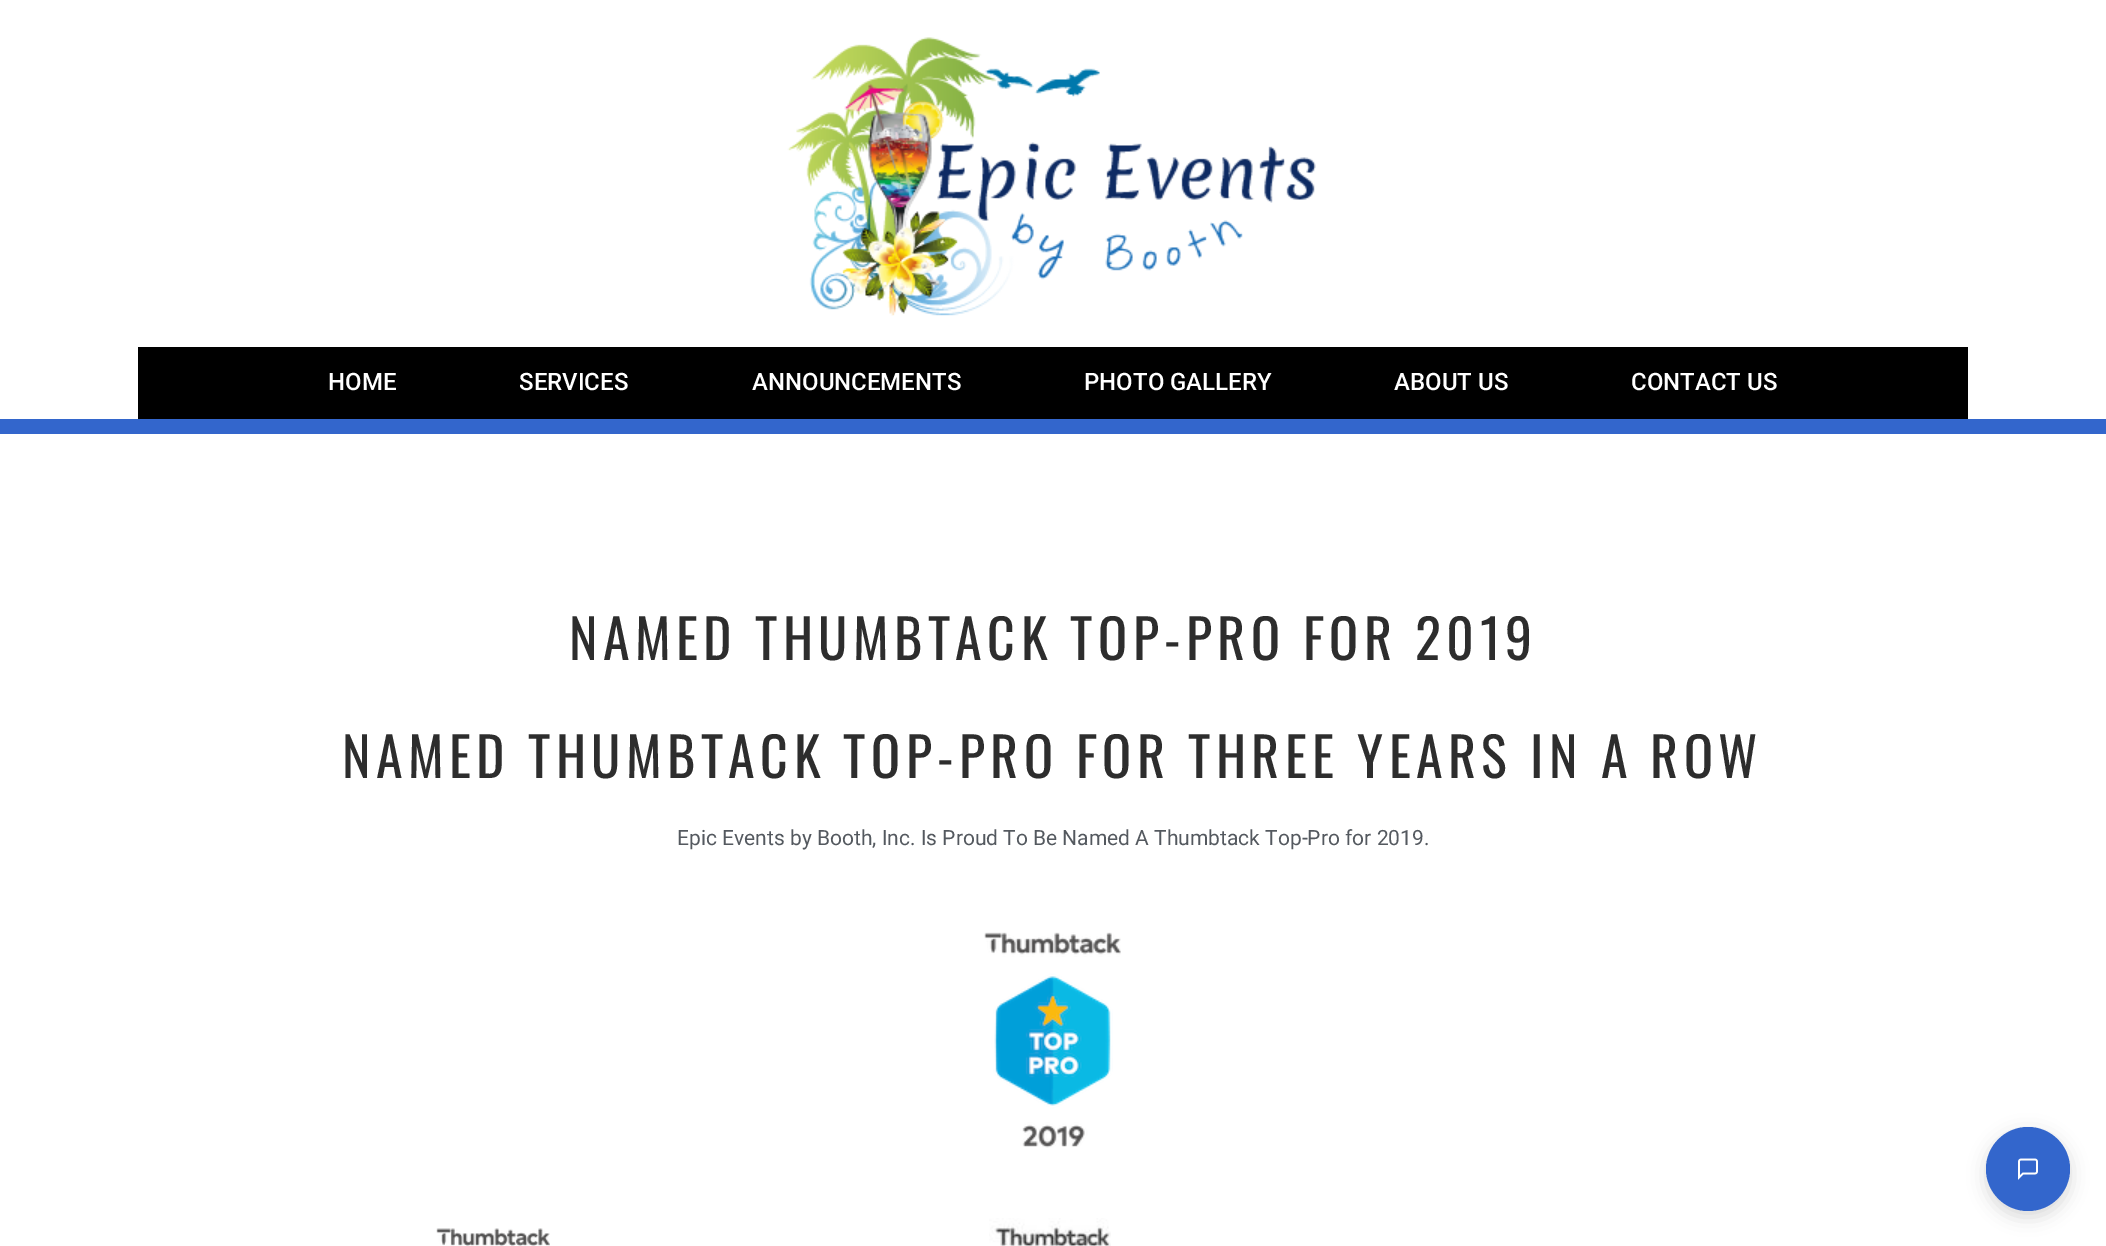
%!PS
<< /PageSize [2106 1246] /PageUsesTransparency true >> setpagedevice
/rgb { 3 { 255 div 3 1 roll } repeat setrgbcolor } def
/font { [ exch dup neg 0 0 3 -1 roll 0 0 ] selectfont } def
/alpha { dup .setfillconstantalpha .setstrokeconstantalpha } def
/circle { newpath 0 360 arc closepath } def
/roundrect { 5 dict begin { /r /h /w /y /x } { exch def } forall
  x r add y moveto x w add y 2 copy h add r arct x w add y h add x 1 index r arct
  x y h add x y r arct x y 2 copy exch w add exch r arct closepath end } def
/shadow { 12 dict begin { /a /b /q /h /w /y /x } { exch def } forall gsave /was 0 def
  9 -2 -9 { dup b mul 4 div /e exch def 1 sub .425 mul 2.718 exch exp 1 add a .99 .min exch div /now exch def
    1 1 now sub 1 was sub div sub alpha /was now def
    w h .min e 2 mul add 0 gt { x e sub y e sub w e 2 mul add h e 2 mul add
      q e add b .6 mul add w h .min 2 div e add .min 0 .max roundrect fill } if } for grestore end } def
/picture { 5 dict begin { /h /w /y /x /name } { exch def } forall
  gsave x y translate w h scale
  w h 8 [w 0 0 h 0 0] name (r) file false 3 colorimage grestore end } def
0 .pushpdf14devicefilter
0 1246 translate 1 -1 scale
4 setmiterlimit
255 255 255 rgb
0 0 2106 1246 rectfill
51 102 204 rgb
0 419 2106 15 rectfill
(img/1.rgb) 787 37 529 279 picture
0 0 0 rgb
138 347 1830 72 rectfill
(img/2.rgb) 984 932 137 216 picture
(img/3.rgb) 436 1228 114 18 picture
(img/4.rgb) 989 1218 122 28 picture
1986 1133 84 84 42 9 0.15 shadow
51 102 204 rgb
2028 1169 42 circle fill
(img/5.rgb) 2018 1158 20 22 picture
/Roboto-Medium 24 font
255 255 255 rgb
[
  [(HOME) 328 390]
  [(SERVICES) 519 390]
  [(ANNOUNCEMENTS) 752 390]
  [(PHOTO GALLERY) 1084 390]
  [(ABOUT US) 1394 390]
  [(CONTACT US) 1631 390]
] { aload pop moveto show } forall
/Oswald-Regular 54 font
45 45 45 rgb
569 660 moveto 5.4 0 (NAMED THUMBTACK TOP-PRO FOR 2019) ashow
342 778 moveto 5.4 0 (NAMED THUMBTACK TOP-PRO FOR THREE YEARS IN A ROW) ashow
/Roboto-Regular 21 font
84 89 95 rgb
677 845 moveto (Epic Events by Booth, Inc. Is Proud To Be Named A Thumbtack Top-Pro for 2019.) show
.poppdf14devicefilter showpage
